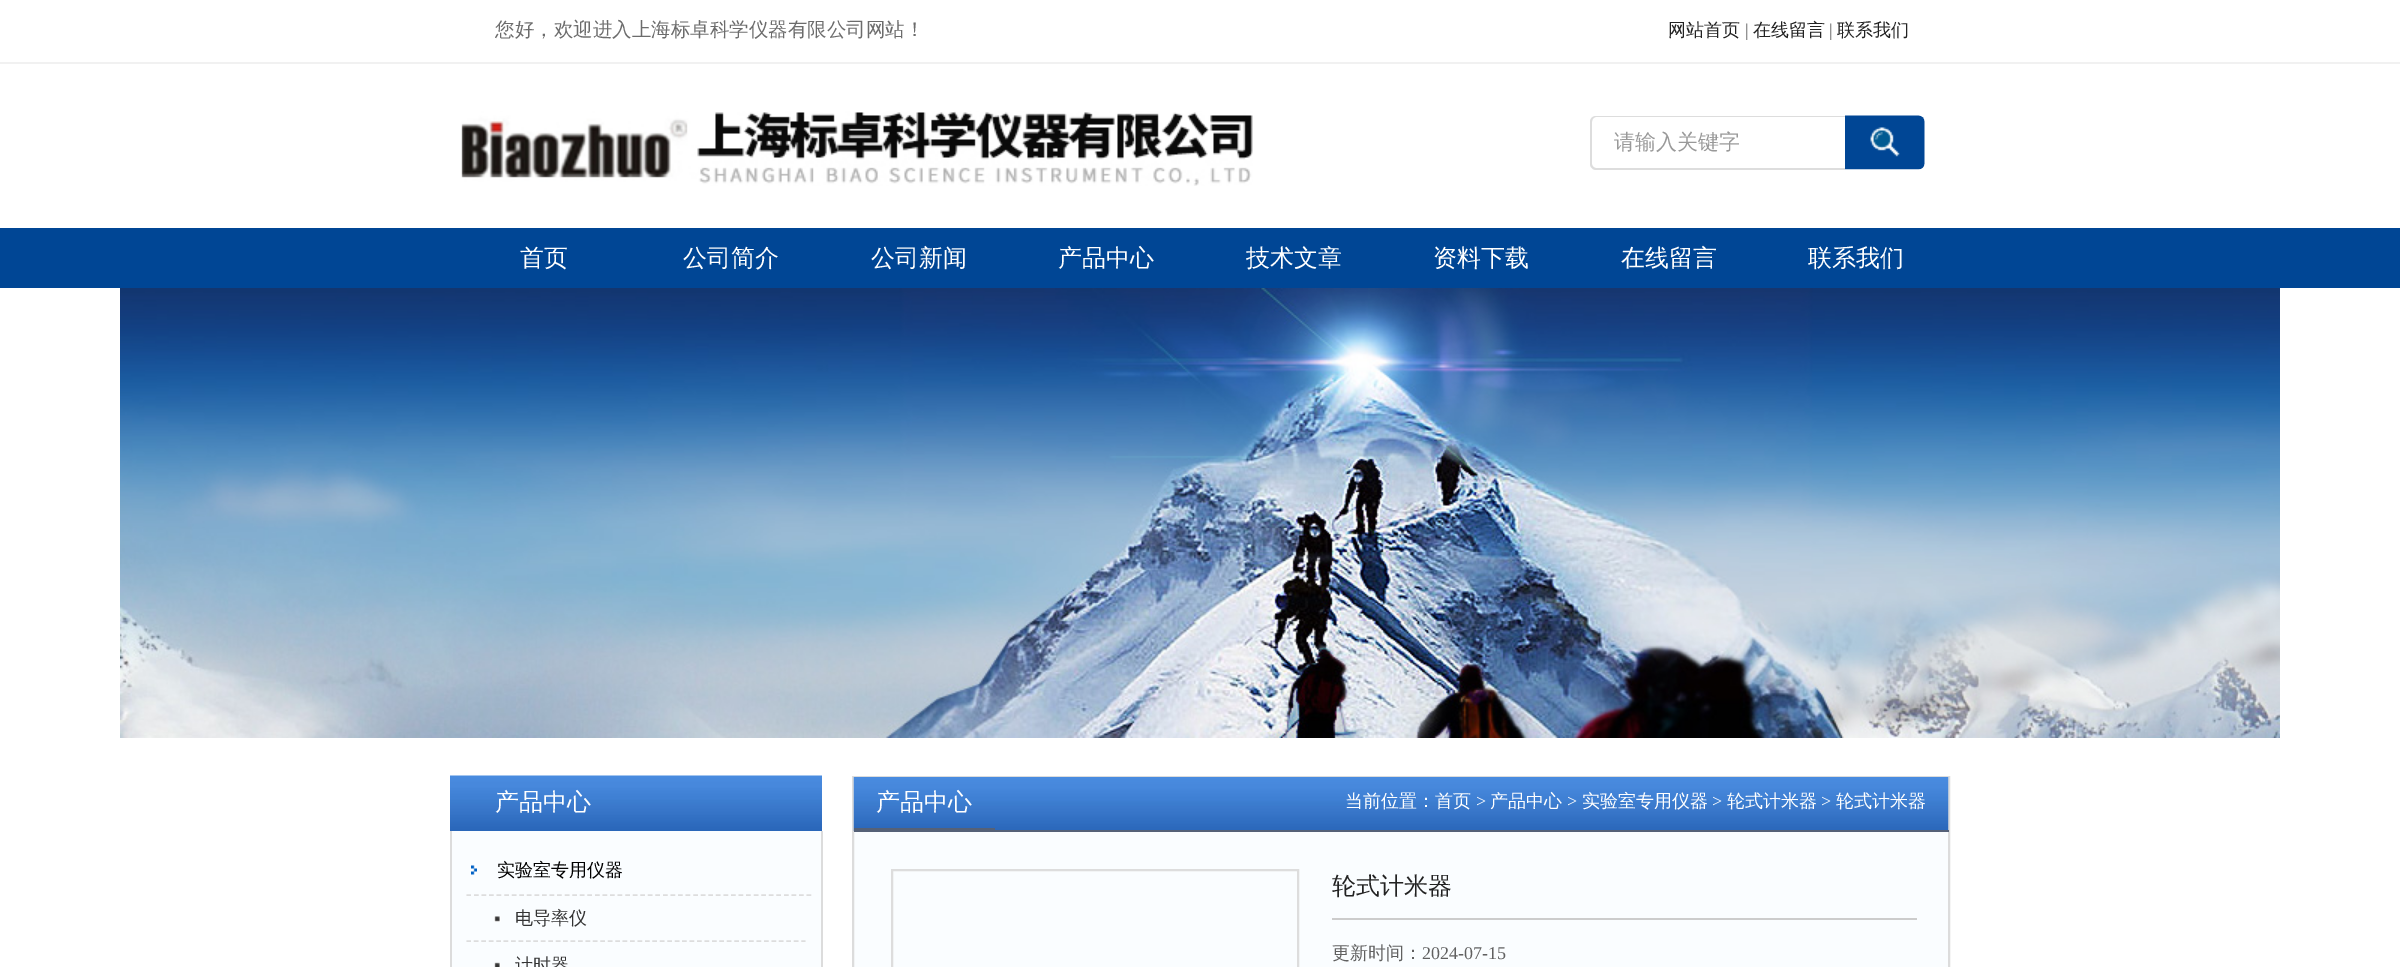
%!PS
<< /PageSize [2400 967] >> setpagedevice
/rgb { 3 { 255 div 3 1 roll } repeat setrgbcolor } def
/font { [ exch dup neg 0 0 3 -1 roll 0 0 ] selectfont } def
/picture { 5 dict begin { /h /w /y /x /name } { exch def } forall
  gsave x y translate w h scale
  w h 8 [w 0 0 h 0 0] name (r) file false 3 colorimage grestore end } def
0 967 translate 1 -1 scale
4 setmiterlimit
255 255 255 rgb
0 0 2400 967 rectfill
241 241 241 rgb
0 62 2400 2 rectfill
(img/1.rgb) 461 111 792 75 picture
221 221 221 rgb
1596 116 moveto 1845 116 lineto 1845 170 lineto 1596 170 lineto 1593 170 1590 167 1590 164 curveto 1590 122 lineto 1590 118 1593 116 1596 116 curveto closepath 1596 117 moveto 1845 117 lineto 1845 168 lineto 1596 168 lineto 1594 168 1592 166 1592 164 curveto 1592 122 lineto 1592 119 1594 117 1596 117 curveto closepath eofill
(img/2.rgb) 1845 115 80 55 picture
0 70 149 rgb
0 228 2400 60 rectfill
(img/3.rgb) 120 288 2160 450 picture
(img/4.rgb) 450 775 372 56 picture
[
  [452 831 369 136 250 253 255]
  [821 831 2 136 220 220 220]
  [450 831 2 136 220 220 220]
] { aload pop rgb rectfill } forall
(img/5.rgb) 471 865 6 10 picture
221 221 221 rgb
1.5 setlinewidth
[4.5 3.06] 0 setdash
466.5 895 moveto 811.5 895 lineto stroke
[4.5 2.94] 0 setdash
466.5 941 moveto 805.5 941 lineto stroke
(img/6.rgb) 494 916 7 6 picture
(img/7.rgb) 494 962 7 5 picture
250 253 255 rgb
854 832 1094 135 rectfill
220 220 220 rgb
2 setlinewidth
[] 0 setdash
853 777 1096 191 rectstroke
(img/8.rgb) 853 777 1096 54 picture
85 97 119 rgb
854 830 1095 2 rectfill
854 828 141 2 rectfill
221 221 221 rgb
892 870 406 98 rectstroke
204 204 204 rgb
1332 918 585 2 rectfill
/WenQuanYiZenHei-Medium 19.5 font
108 108 108 rgb
495 36 moveto (您好，欢迎进入上海标卓科学仪器有限公司网站！) show
/WenQuanYiZenHei-Medium 18 font
34 34 34 rgb
1668 36 moveto (网站首页) show
/LiberationSerif-Regular 18 font
108 108 108 rgb
1745 36 moveto (|) show
/WenQuanYiZenHei-Medium 18 font
34 34 34 rgb
1753 36 moveto (在线留言) show
/LiberationSerif-Regular 18 font
108 108 108 rgb
1829 36 moveto (|) show
/WenQuanYiZenHei-Medium 18 font
34 34 34 rgb
1837 36 moveto (联系我们) show
/WenQuanYiZenHei-Medium 21 font
153 153 153 rgb
1614 149 moveto (请输入关键字) show
/WenQuanYiZenHei-Medium 24 font
255 255 255 rgb
[
  [(首页) 520 266]
  [(公司简介) 683 266]
  [(公司新闻) 871 266]
  [(产品中心) 1058 266]
  [(技术文章) 1246 266]
  [(资料下载) 1433 266]
  [(在线留言) 1621 266]
  [(联系我们) 1808 266]
  [(产品中心) 495 810]
] { aload pop moveto show } forall
/WenQuanYiZenHei-Medium 18 font
0 0 0 rgb
497 876 moveto (实验室专用仪器) show
51 51 51 rgb
515 924 moveto (电导率仪) show
515 971 moveto (计时器) show
/WenQuanYiZenHei-Medium 24 font
255 255 255 rgb
876 810 moveto (产品中心) show
/WenQuanYiZenHei-Medium 18 font
1345 807 moveto (当前位置：首页) show
/LiberationSerif-Regular 18 font
1476 807 moveto (>) show
/WenQuanYiZenHei-Medium 18 font
1490 807 moveto (产品中心) show
/LiberationSerif-Regular 18 font
1567 807 moveto (>) show
/WenQuanYiZenHei-Medium 18 font
1582 807 moveto (实验室专用仪器) show
/LiberationSerif-Regular 18 font
1712 807 moveto (>) show
/WenQuanYiZenHei-Medium 18 font
1727 807 moveto (轮式计米器) show
/LiberationSerif-Regular 18 font
1821 807 moveto (>) show
/WenQuanYiZenHei-Medium 18 font
1836 807 moveto (轮式计米器) show
/WenQuanYiZenHei-Medium 24 font
34 34 34 rgb
1332 894 moveto (轮式计米器) show
/WenQuanYiZenHei-Medium 18 font
96 96 96 rgb
1332 959 moveto (更新时间：) show
/LiberationSerif-Regular 18 font
1422 959 moveto (2024-07-15) show
showpage
